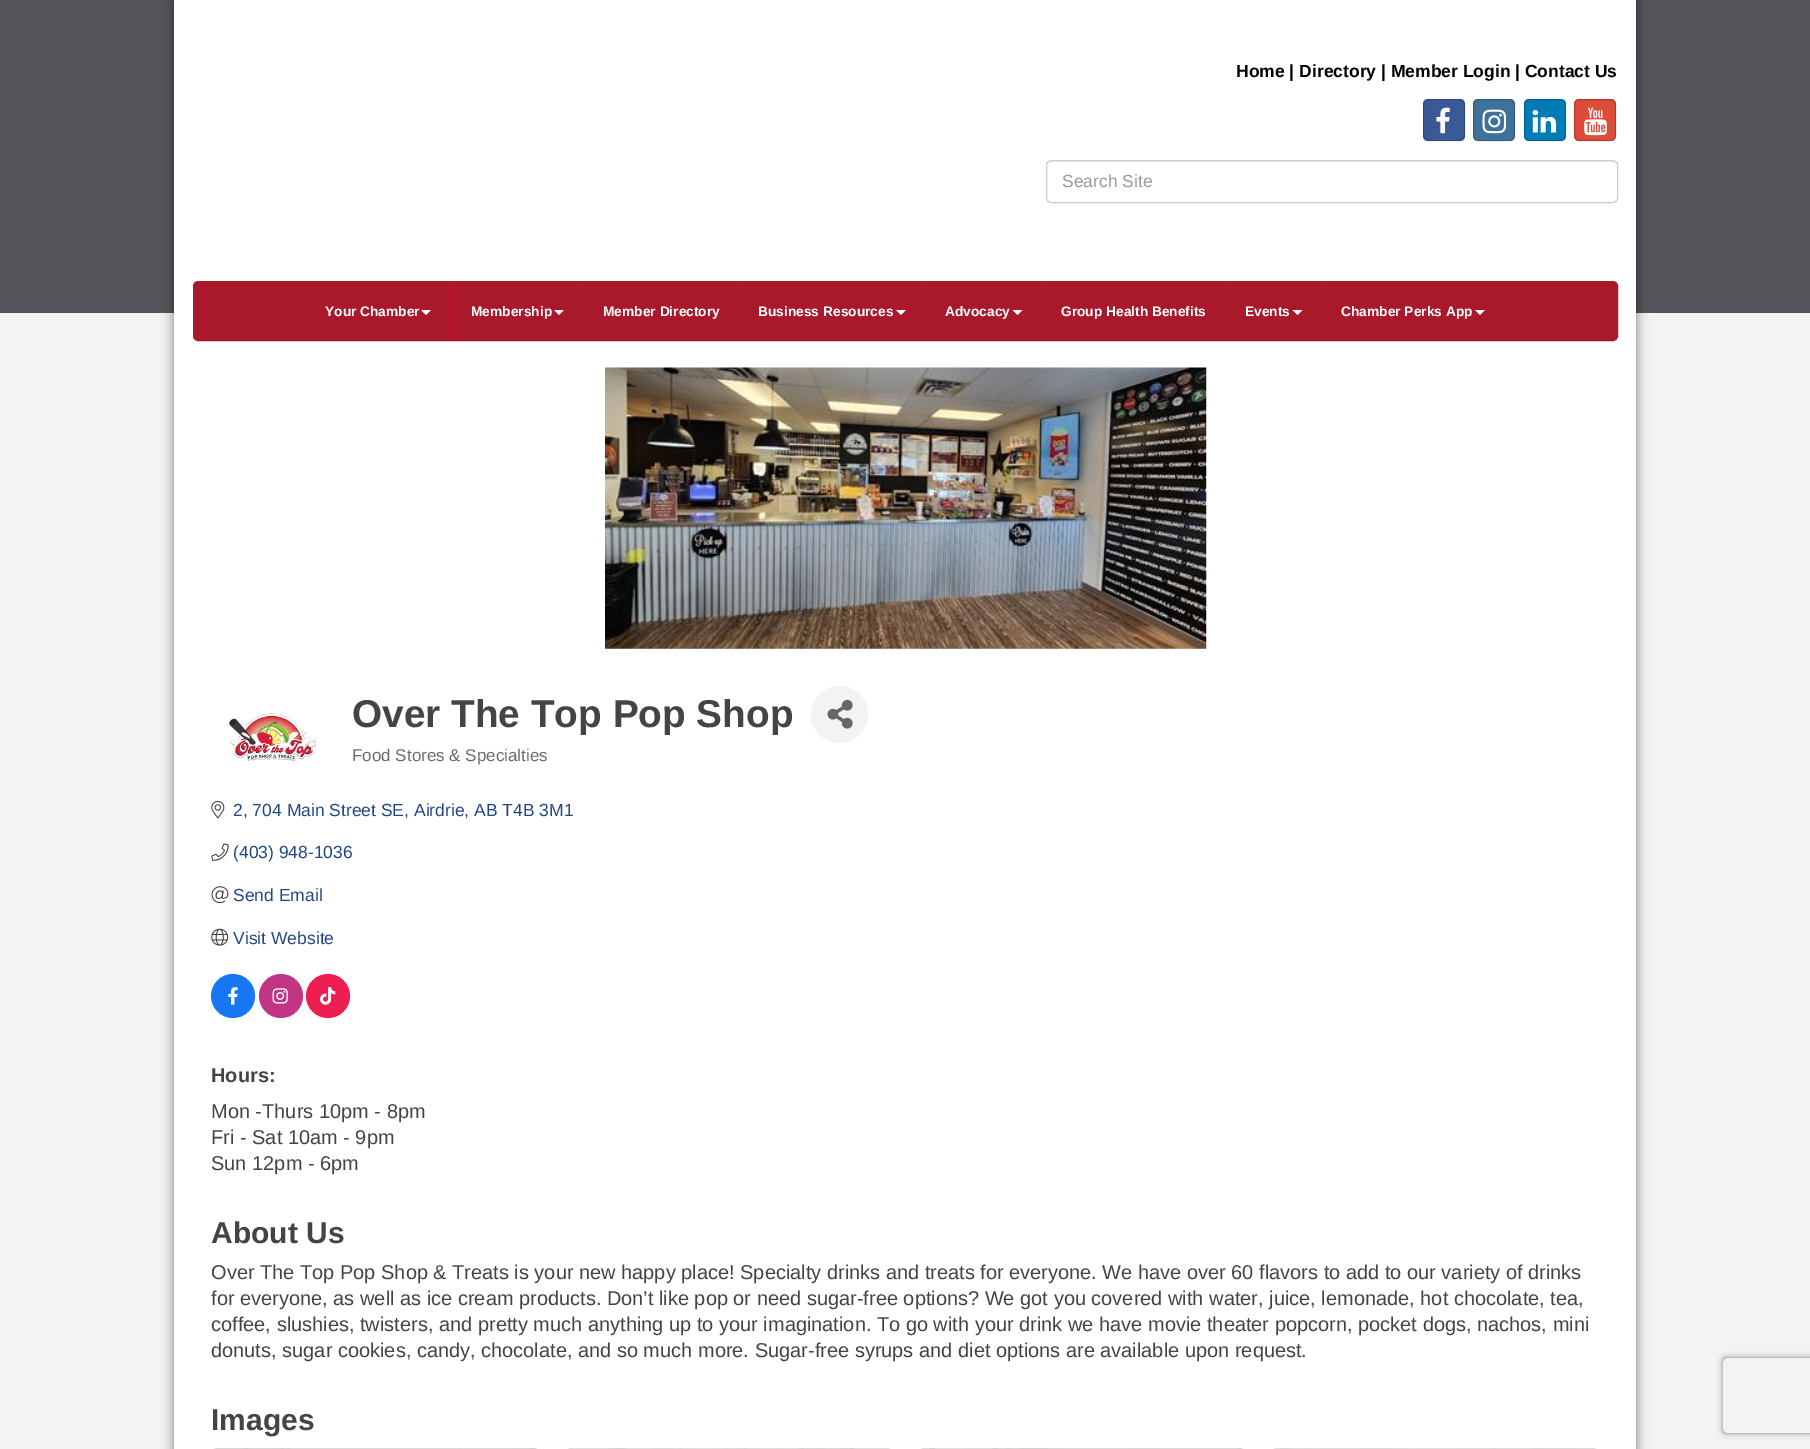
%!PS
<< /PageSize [1810 1449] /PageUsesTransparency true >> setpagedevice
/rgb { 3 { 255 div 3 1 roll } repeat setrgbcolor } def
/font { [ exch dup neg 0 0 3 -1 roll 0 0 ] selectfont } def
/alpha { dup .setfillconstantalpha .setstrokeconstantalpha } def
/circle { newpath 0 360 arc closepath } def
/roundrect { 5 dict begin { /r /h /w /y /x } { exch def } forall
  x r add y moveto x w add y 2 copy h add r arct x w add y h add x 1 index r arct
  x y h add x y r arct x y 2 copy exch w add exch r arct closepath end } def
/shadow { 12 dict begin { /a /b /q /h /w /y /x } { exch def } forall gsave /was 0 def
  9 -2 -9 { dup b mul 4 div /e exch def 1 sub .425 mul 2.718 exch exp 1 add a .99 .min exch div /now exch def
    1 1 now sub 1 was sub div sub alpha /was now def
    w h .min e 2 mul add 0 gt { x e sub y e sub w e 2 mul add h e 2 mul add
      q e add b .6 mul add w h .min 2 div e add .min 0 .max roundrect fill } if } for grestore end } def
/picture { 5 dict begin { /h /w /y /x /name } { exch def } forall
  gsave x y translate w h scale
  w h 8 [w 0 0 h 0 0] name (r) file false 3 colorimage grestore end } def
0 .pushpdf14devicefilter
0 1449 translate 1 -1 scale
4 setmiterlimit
243 243 243 rgb
0 0 1810 1449 rectfill
84 86 91 rgb
0 0 1810 313 rectfill
0 0 0 rgb
174 0 1462 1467 0 6 0.5 shadow
255 255 255 rgb
174 0 1462 1449 rectfill
59 89 152 rgb
1423 99 42 42 5 roundrect fill
0.2 alpha
0 0 0 rgb
1423.5 99.5 41 41 4.5 roundrect stroke
1 alpha
(img/1.rgb) 1436 107 14 27 picture
63 114 155 rgb
1473 99 42 42 5 roundrect fill
0.2 alpha
0 0 0 rgb
1473.5 99.5 41 41 4.5 roundrect stroke
1 alpha
(img/2.rgb) 1482 109 25 25 picture
0 123 182 rgb
1524 99 42 42 5 roundrect fill
0.2 alpha
0 0 0 rgb
1524.5 99.5 41 41 4.5 roundrect stroke
1 alpha
(img/3.rgb) 1532 110 25 23 picture
221 75 57 rgb
1574 99 42 42 5 roundrect fill
0.2 alpha
0 0 0 rgb
1574.5 99.5 41 41 4.5 roundrect stroke
1 alpha
(img/4.rgb) 1584 107 23 29 picture
236 236 236 rgb
1051 162 moveto 1612 162 lineto 1615 162 1616 164 1616 166 curveto 1616 163 1615 161 1612 161 curveto 1052 161 lineto 1049 161 1048 163 1048 166 curveto 1048 164 1049 162 1051 162 curveto closepath fill
204 204 204 rgb
1046.5 160.5 571 42 4.5 roundrect stroke
170 24 44 rgb
193.5 281.5 1424 59 4.5 roundrect gsave fill grestore
stroke
206 14 45 rgb
450 283 1 57 rectfill
255 255 255 rgb
421 310 moveto 431 310 lineto 426 315 lineto closepath fill
206 14 45 rgb
583 283 1 57 rectfill
255 255 255 rgb
554 310 moveto 564 310 lineto 559 315 lineto closepath fill
206 14 45 rgb
739 283 1 57 rectfill
925 283 1 57 rectfill
255 255 255 rgb
896 310 moveto 906 310 lineto 901 315 lineto closepath fill
206 14 45 rgb
1041 283 1 57 rectfill
255 255 255 rgb
1012.5 310 moveto 1022.5 310 lineto 1017.5 315 lineto closepath fill
206 14 45 rgb
1225 283 1 57 rectfill
1321 283 1 57 rectfill
255 255 255 rgb
1292.5 310 moveto 1302.5 310 lineto 1297.5 315 lineto closepath fill
1475 310 moveto 1485 310 lineto 1480 315 lineto closepath fill
(img/5.rgb) 605 367 602 282 picture
(img/6.rgb) 229 713 87 48 picture
243 243 243 rgb
839.5 714.5 28.5 circle fill
(img/7.rgb) 827 699 26 30 picture
(img/8.rgb) 211 800 14 19 picture
(img/9.rgb) 211 843 18 18 picture
(img/10.rgb) 211 886 18 18 picture
(img/11.rgb) 211 928 18 18 picture
24 119 242 rgb
233 996 22 circle fill
(img/12.rgb) 228 987 10 18 picture
193 53 132 rgb
281 996 22 circle fill
(img/13.rgb) 272 988 16 16 picture
238 29 82 rgb
328 996 22 circle fill
(img/14.rgb) 320 987 16 18 picture
223 223 223 rgb
211.5 1448.5 328 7 5.5 roundrect stroke
(img/15.rgb) 215 1448 321 1 picture
565.5 1448.5 327 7 5.5 roundrect stroke
(img/16.rgb) 569 1448 286 1 picture
918.5 1448.5 327 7 5.5 roundrect stroke
(img/17.rgb) 929 1448 313 1 picture
1271.5 1448.5 327 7 5.5 roundrect stroke
(img/18.rgb) 1278 1448 316 1 picture
gsave
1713 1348 moveto 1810 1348 lineto 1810 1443 lineto 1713 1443 lineto closepath 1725.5 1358 moveto 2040.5 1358 lineto 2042 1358 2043 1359 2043 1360.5 curveto 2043 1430.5 lineto 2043 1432 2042 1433 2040.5 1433 curveto 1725.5 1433 lineto 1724 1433 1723 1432 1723 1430.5 curveto 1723 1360.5 lineto 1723 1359 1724 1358 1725.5 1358 curveto closepath eoclip newpath
128 128 128 rgb
1723 1358 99 75 2.5 3 1 shadow
grestore
/LiberationSans-Bold 17.5 font
0 0 0 rgb
1236 77 moveto (Home | Directory | Member Login | Contact Us) show
/LiberationSans-Regular 17.5 font
153 153 153 rgb
1062 187 moveto (Search Site) show
/LiberationSans-Bold 13.75 font
255 255 255 rgb
[
  [(Your Chamber) 325 316]
  [(Membership) 471 316]
  [(Member Directory) 603 316]
  [(Business Resources) 758 316]
  [(Advocacy) 945 316]
  [(Group Health Benefits) 1061 316]
  [(Events) 1245 316]
  [(Chamber Perks App) 1341 316]
] { aload pop moveto show } forall
/LiberationSans-Bold 38.75 font
68 68 68 rgb
352 727 moveto (Over The Top Pop Shop) show
/LiberationSans-Regular 17 font
105 105 105 rgb
352 761 moveto (Food Stores & Specialties) show
/LiberationSans-Regular 17.5 font
34 72 132 rgb
[
  [(2, 704 Main Street SE, Airdrie, AB T4B 3M1) 233 816]
  [(\(403\) 948-1036) 233 858]
  [(Send Email) 233 901]
  [(Visit Website) 233 944]
] { aload pop moveto show } forall
/LiberationSans-Bold 20 font
68 68 68 rgb
211 1082 moveto (Hours:) show
/LiberationSans-Regular 20 font
[
  [(Mon -Thurs 10pm - 8pm) 211 1118]
  [(Fri - Sat 10am - 9pm) 211 1144]
  [(Sun 12pm - 6pm) 211 1170]
] { aload pop moveto show } forall
/LiberationSans-Bold 30 font
211 1243 moveto (About Us) show
/LiberationSans-Regular 20 font
[
  [(Over The Top Pop Shop & Treats is your new happy place! Specialty drinks and treats for everyone. We have over 60 flavors to add to our variety of drinks) 211 1279]
  [(for everyone, as well as ice cream products. Don’t like pop or need sugar-free options? We got you covered with water, juice, lemonade, hot chocolate, tea,) 211 1305]
  [(coffee, slushies, twisters, and pretty much anything up to your imagination. To go with your drink we have movie theater popcorn, pocket dogs, nachos, mini) 211 1331]
  [(donuts, sugar cookies, candy, chocolate, and so much more. Sugar-free syrups and diet options are available upon request.) 211 1357]
] { aload pop moveto show } forall
/LiberationSans-Bold 30 font
211 1430 moveto (Images) show
.poppdf14devicefilter showpage
